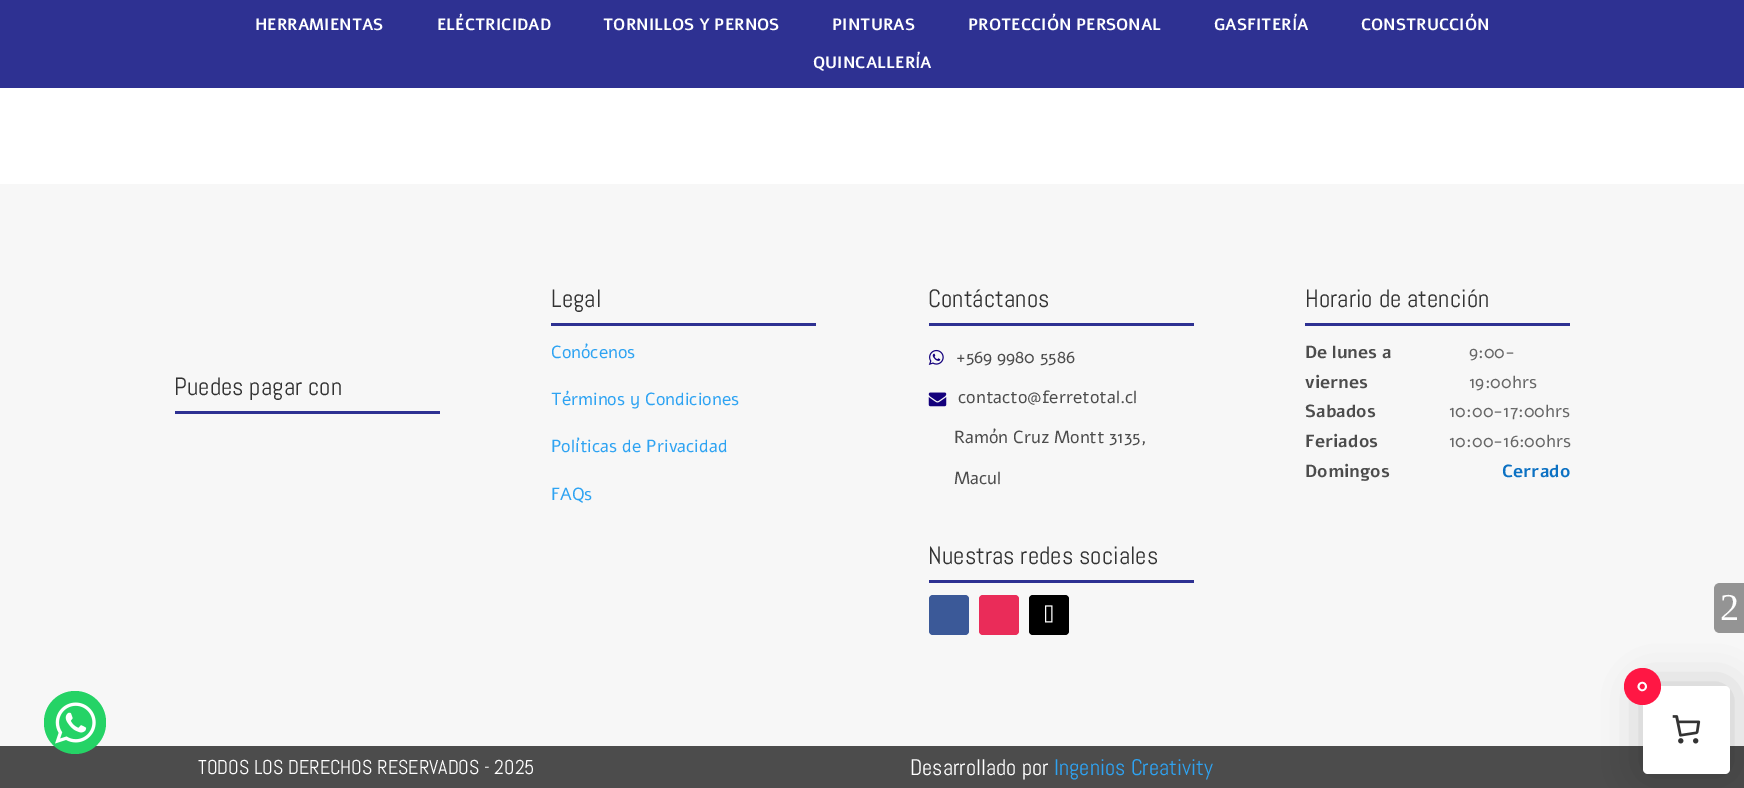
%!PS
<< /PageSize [1744 788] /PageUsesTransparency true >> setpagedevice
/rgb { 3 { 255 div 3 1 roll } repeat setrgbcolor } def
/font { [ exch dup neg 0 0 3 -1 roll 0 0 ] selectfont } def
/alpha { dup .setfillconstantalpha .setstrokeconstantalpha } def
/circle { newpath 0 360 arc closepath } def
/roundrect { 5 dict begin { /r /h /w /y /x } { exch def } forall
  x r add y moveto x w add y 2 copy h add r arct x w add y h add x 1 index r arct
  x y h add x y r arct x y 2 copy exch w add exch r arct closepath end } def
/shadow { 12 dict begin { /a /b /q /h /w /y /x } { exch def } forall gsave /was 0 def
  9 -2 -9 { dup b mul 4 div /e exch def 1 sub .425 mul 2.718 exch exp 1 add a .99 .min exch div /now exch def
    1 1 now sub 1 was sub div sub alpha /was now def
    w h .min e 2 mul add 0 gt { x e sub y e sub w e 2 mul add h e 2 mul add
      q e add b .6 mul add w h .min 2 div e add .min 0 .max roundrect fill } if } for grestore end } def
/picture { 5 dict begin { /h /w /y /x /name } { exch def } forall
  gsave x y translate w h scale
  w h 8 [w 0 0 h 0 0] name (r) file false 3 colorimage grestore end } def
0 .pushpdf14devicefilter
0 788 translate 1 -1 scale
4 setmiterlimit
255 255 255 rgb
0 0 1744 788 rectfill
[
  [0 0 1744 88 46 49 146]
  [0 184 1744 562 247 247 247]
  [175 411 265 3 46 49 146]
  [551 323 265 3 46 49 146]
  [929 323 265 3 46 49 146]
] { aload pop rgb rectfill } forall
(img/1.rgb) 928 349 16 16 picture
(img/2.rgb) 928 392 19 15 picture
929 580 265 3 rectfill
59 89 152 rgb
929 595 40 40 4 roundrect fill
234 44 89 rgb
979 595 40 40 4 roundrect fill
0 0 0 rgb
1029 595 40 40 4 roundrect fill
(img/3.rgb) 1045 605 8 18 picture
46 49 146 rgb
1305 323 265 3 rectfill
76 76 76 rgb
0 746 1744 42 rectfill
37 211 102 rgb
44 691 62 63 31 roundrect fill
(img/4.rgb) 55 702 41 42 picture
148 148 148 rgb
1720 583 moveto 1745 583 lineto 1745 633 lineto 1720 633 lineto 1716.5 633 1714 630.5 1714 627 curveto 1714 589 lineto 1714 585.5 1716.5 583 1720 583 curveto closepath fill
0 0 0 rgb
1643 686 87 88 5 19 0.2 shadow
255 255 255 rgb
1643 686 87 88 5 roundrect fill
255 23 68 rgb
1642.5 686.5 18.5 circle fill
(img/5.rgb) 1672 715 29 29 picture
/Alef-Bold 16.25 font
255 255 255 rgb
[
  [(HERRAMIENTAS) 255 30]
  [(ELÉCTRICIDAD) 437 30]
  [(TORNILLOS Y PERNOS) 603 30]
  [(PINTURAS) 832 30]
  [(PROTECCIÓN PERSONAL) 968 30]
  [(GASFITERÍA) 1214 30]
  [(CONSTRUCCIÓN) 1361 30]
  [(QUINCALLERÍA) 813 68]
] { aload pop moveto show } forall
/Abel-Regular 25 font
51 51 51 rgb
174 395 moveto (Puedes pagar con) show
551 307 moveto (Legal) show
/Alef-Regular 17.5 font
46 163 242 rgb
[
  [(Conócenos) 551 358]
  [(Términos y Condiciones) 551 405]
  [(Políticas de Privacidad) 551 452]
  [(FAQs) 551 500]
] { aload pop moveto show } forall
/Abel-Regular 25 font
51 51 51 rgb
928 307 moveto (Contáctanos) show
/Alef-Regular 17.5 font
76 76 76 rgb
[
  [(+569 9980 5586) 956 363]
  [(contacto@ferretotal.cl) 958 403]
  [(Ramón Cruz Montt 3135,) 954 443]
  [(Macul) 954 484]
] { aload pop moveto show } forall
/Abel-Regular 25 font
51 51 51 rgb
928 564 moveto (Nuestras redes sociales) show
1305 307 moveto (Horario de atención) show
/Alef-Bold 17.5 font
76 76 76 rgb
1305 358 moveto (De lunes a) show
1305 388 moveto (viernes) show
/Alef-Regular 17.5 font
102 102 102 rgb
1469 358 moveto (9:00-) show
1469 388 moveto (19:00hrs) show
/Alef-Bold 17.5 font
76 76 76 rgb
1305 417 moveto (Sabados) show
/Alef-Regular 17.5 font
102 102 102 rgb
1449 417 moveto (10:00-17:00hrs) show
/Alef-Bold 17.5 font
76 76 76 rgb
1305 447 moveto (Feriados) show
/Alef-Regular 17.5 font
102 102 102 rgb
1449 447 moveto (10:00-16:00hrs) show
/Alef-Bold 17.5 font
76 76 76 rgb
1305 477 moveto (Domingos) show
12 113 195 rgb
1502 477 moveto (Cerrado) show
/Abel-Regular 20 font
255 255 255 rgb
198 774 moveto (TODOS LOS DERECHOS RESERVADOS - 2025) show
/Abel-Regular 22.5 font
910 775 moveto (Desarrollado por) show
46 163 242 rgb
1054 775 moveto (Ingenios Creativity) show
/LiberationSerif-Regular 38 font
255 255 255 rgb
1720 620 moveto (2) show
/Alef-Bold 17.5 font
1637 691 moveto (0) show
.poppdf14devicefilter showpage
